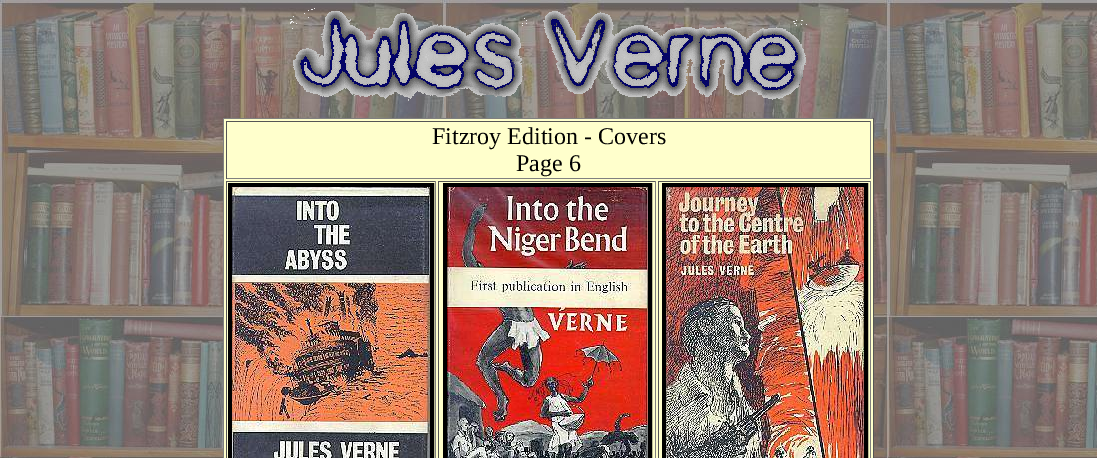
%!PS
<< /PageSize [1097 458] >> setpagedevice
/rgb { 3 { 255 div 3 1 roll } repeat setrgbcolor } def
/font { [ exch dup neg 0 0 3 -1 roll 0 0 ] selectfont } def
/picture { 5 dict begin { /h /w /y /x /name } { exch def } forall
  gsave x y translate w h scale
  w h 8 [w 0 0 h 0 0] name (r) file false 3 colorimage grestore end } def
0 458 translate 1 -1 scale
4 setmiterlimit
255 255 255 rgb
0 0 1097 458 rectfill
(img/1.rgb) 0 0 1097 458 picture
(img/2.rgb) 290 8 237 93 picture
(img/3.rgb) 543 11 264 89 picture
[
  [224 119 649 339 255 255 204]
  [223 118 651 1 128 128 128]
  [873 118 1 340 85 85 85]
  [223 118 1 340 128 128 128]
  [226 121 645 1 85 85 85]
  [870 121 1 58 128 128 128]
  [226 178 645 1 128 128 128]
  [226 121 1 58 85 85 85]
  [226 181 210 1 85 85 85]
  [435 181 1 277 128 128 128]
  [226 181 1 277 85 85 85]
] { aload pop rgb rectfill } forall
0 0 0 rgb
4 setlinewidth
230 185 202 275 rectstroke
(img/4.rgb) 232 187 198 271 picture
[
  [438 181 218 1 85 85 85]
  [655 181 1 277 128 128 128]
  [438 181 1 277 85 85 85]
] { aload pop rgb rectfill } forall
0 0 0 rgb
445 185 205 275 rectstroke
(img/5.rgb) 447 187 201 271 picture
[
  [658 181 213 1 85 85 85]
  [870 181 1 277 128 128 128]
  [658 181 1 277 85 85 85]
] { aload pop rgb rectfill } forall
0 0 0 rgb
664 185 202 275 rectstroke
(img/6.rgb) 666 187 198 271 picture
/LiberationSerif-Regular 24 font
432 144 moveto (Fitzroy Edition - Covers) show
516 171 moveto (Page 6) show
showpage
